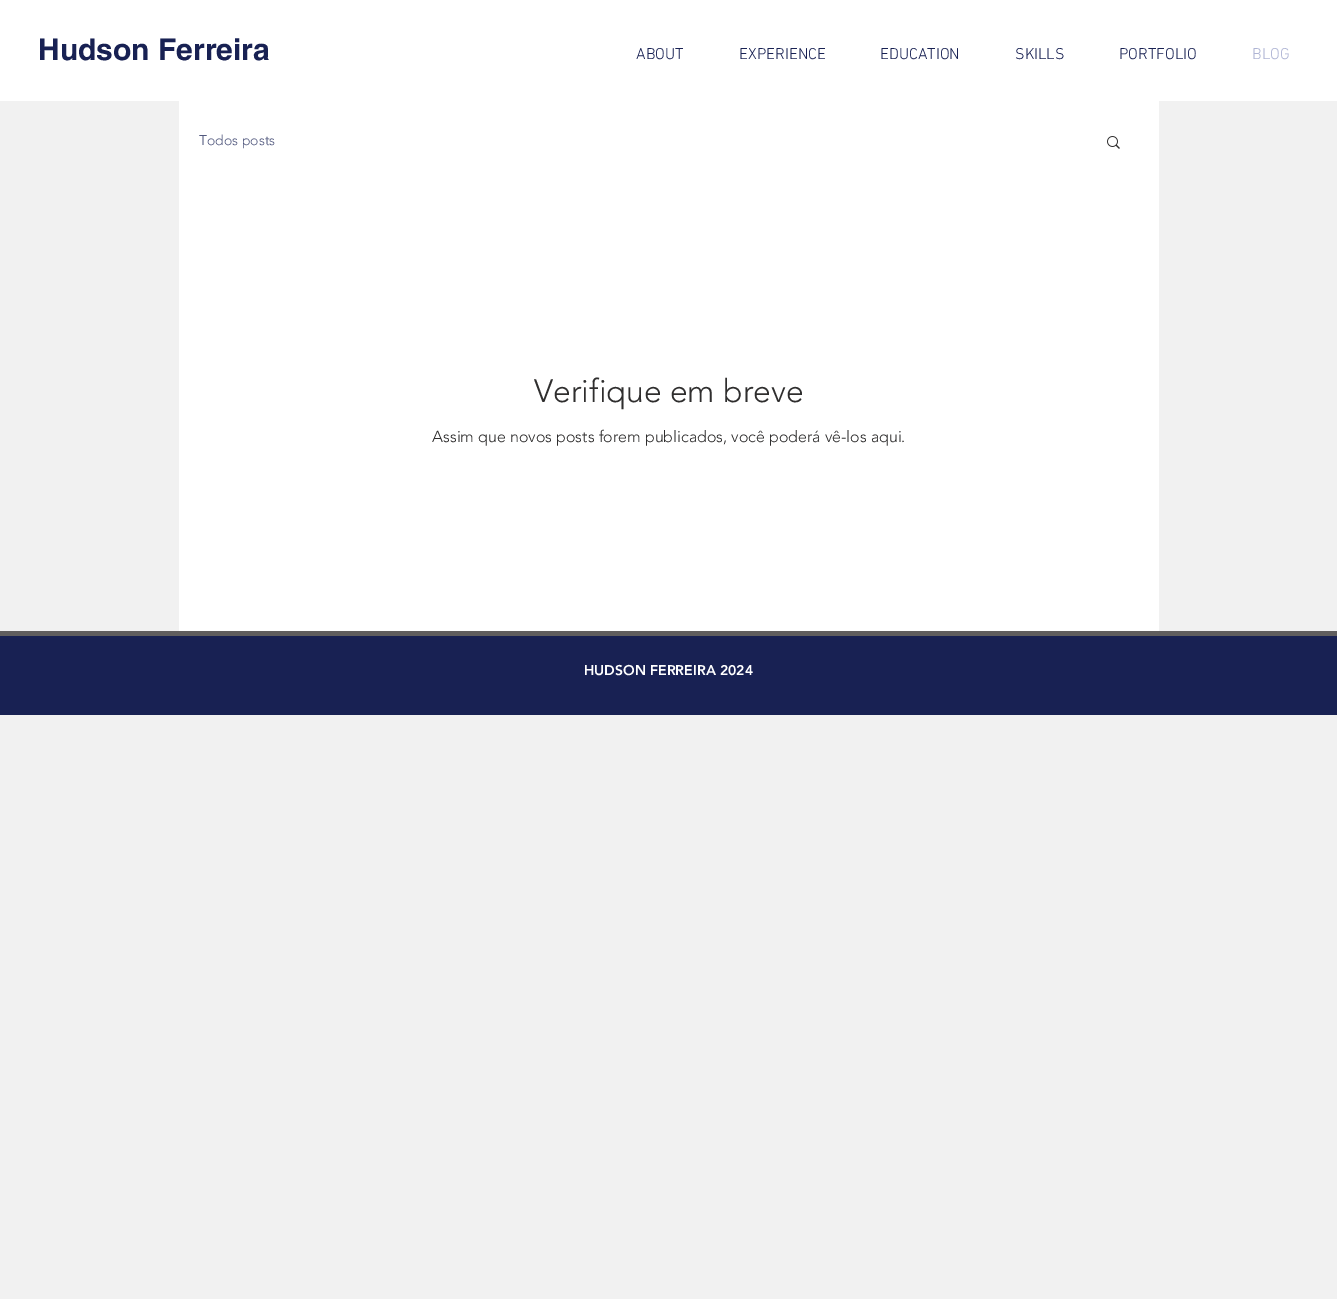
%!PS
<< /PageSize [1337 1299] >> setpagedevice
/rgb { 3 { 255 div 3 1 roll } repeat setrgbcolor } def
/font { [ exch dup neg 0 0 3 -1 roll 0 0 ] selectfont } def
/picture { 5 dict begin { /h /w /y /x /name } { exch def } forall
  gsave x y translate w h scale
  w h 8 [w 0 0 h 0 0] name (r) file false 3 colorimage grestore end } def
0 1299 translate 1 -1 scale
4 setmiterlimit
241 241 241 rgb
0 0 1337 1299 rectfill
255 255 255 rgb
0 0 1337 101 rectfill
179 101 980 530 rectfill
(img/1.rgb) 1107 136 13 13 picture
24 33 83 rgb
0 636 1337 79 rectfill
96 94 94 rgb
0 631 1337 5 rectfill
/helvetica-Bold 30 font
24 33 83 rgb
38 60 moveto (Hudson Ferreira) show
/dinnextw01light-Light 16 font
[
  [(ABOUT) 636 59]
  [(EXPERIENCE) 739 59]
  [(EDUCATION) 880 59]
  [(SKILLS) 1015 59]
  [(PORTFOLIO) 1119 59]
] { aload pop moveto show } forall
174 180 212 rgb
1252 59 moveto (BLOG) show
/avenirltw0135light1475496-Light 14 font
81 88 126 rgb
199 145 moveto (Todos posts) show
/avenirltw0135light1475496-Light 32 font
47 46 46 rgb
534 402 moveto (Verifique em breve) show
/avenirltw0135light1475496-Light 16 font
432 442 moveto (Assim que novos posts forem publicados, você poderá vê-los aqui.) show
/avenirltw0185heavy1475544-Black 14 font
255 255 255 rgb
584 675 moveto (HUDSON FERREIRA 2024) show
showpage
